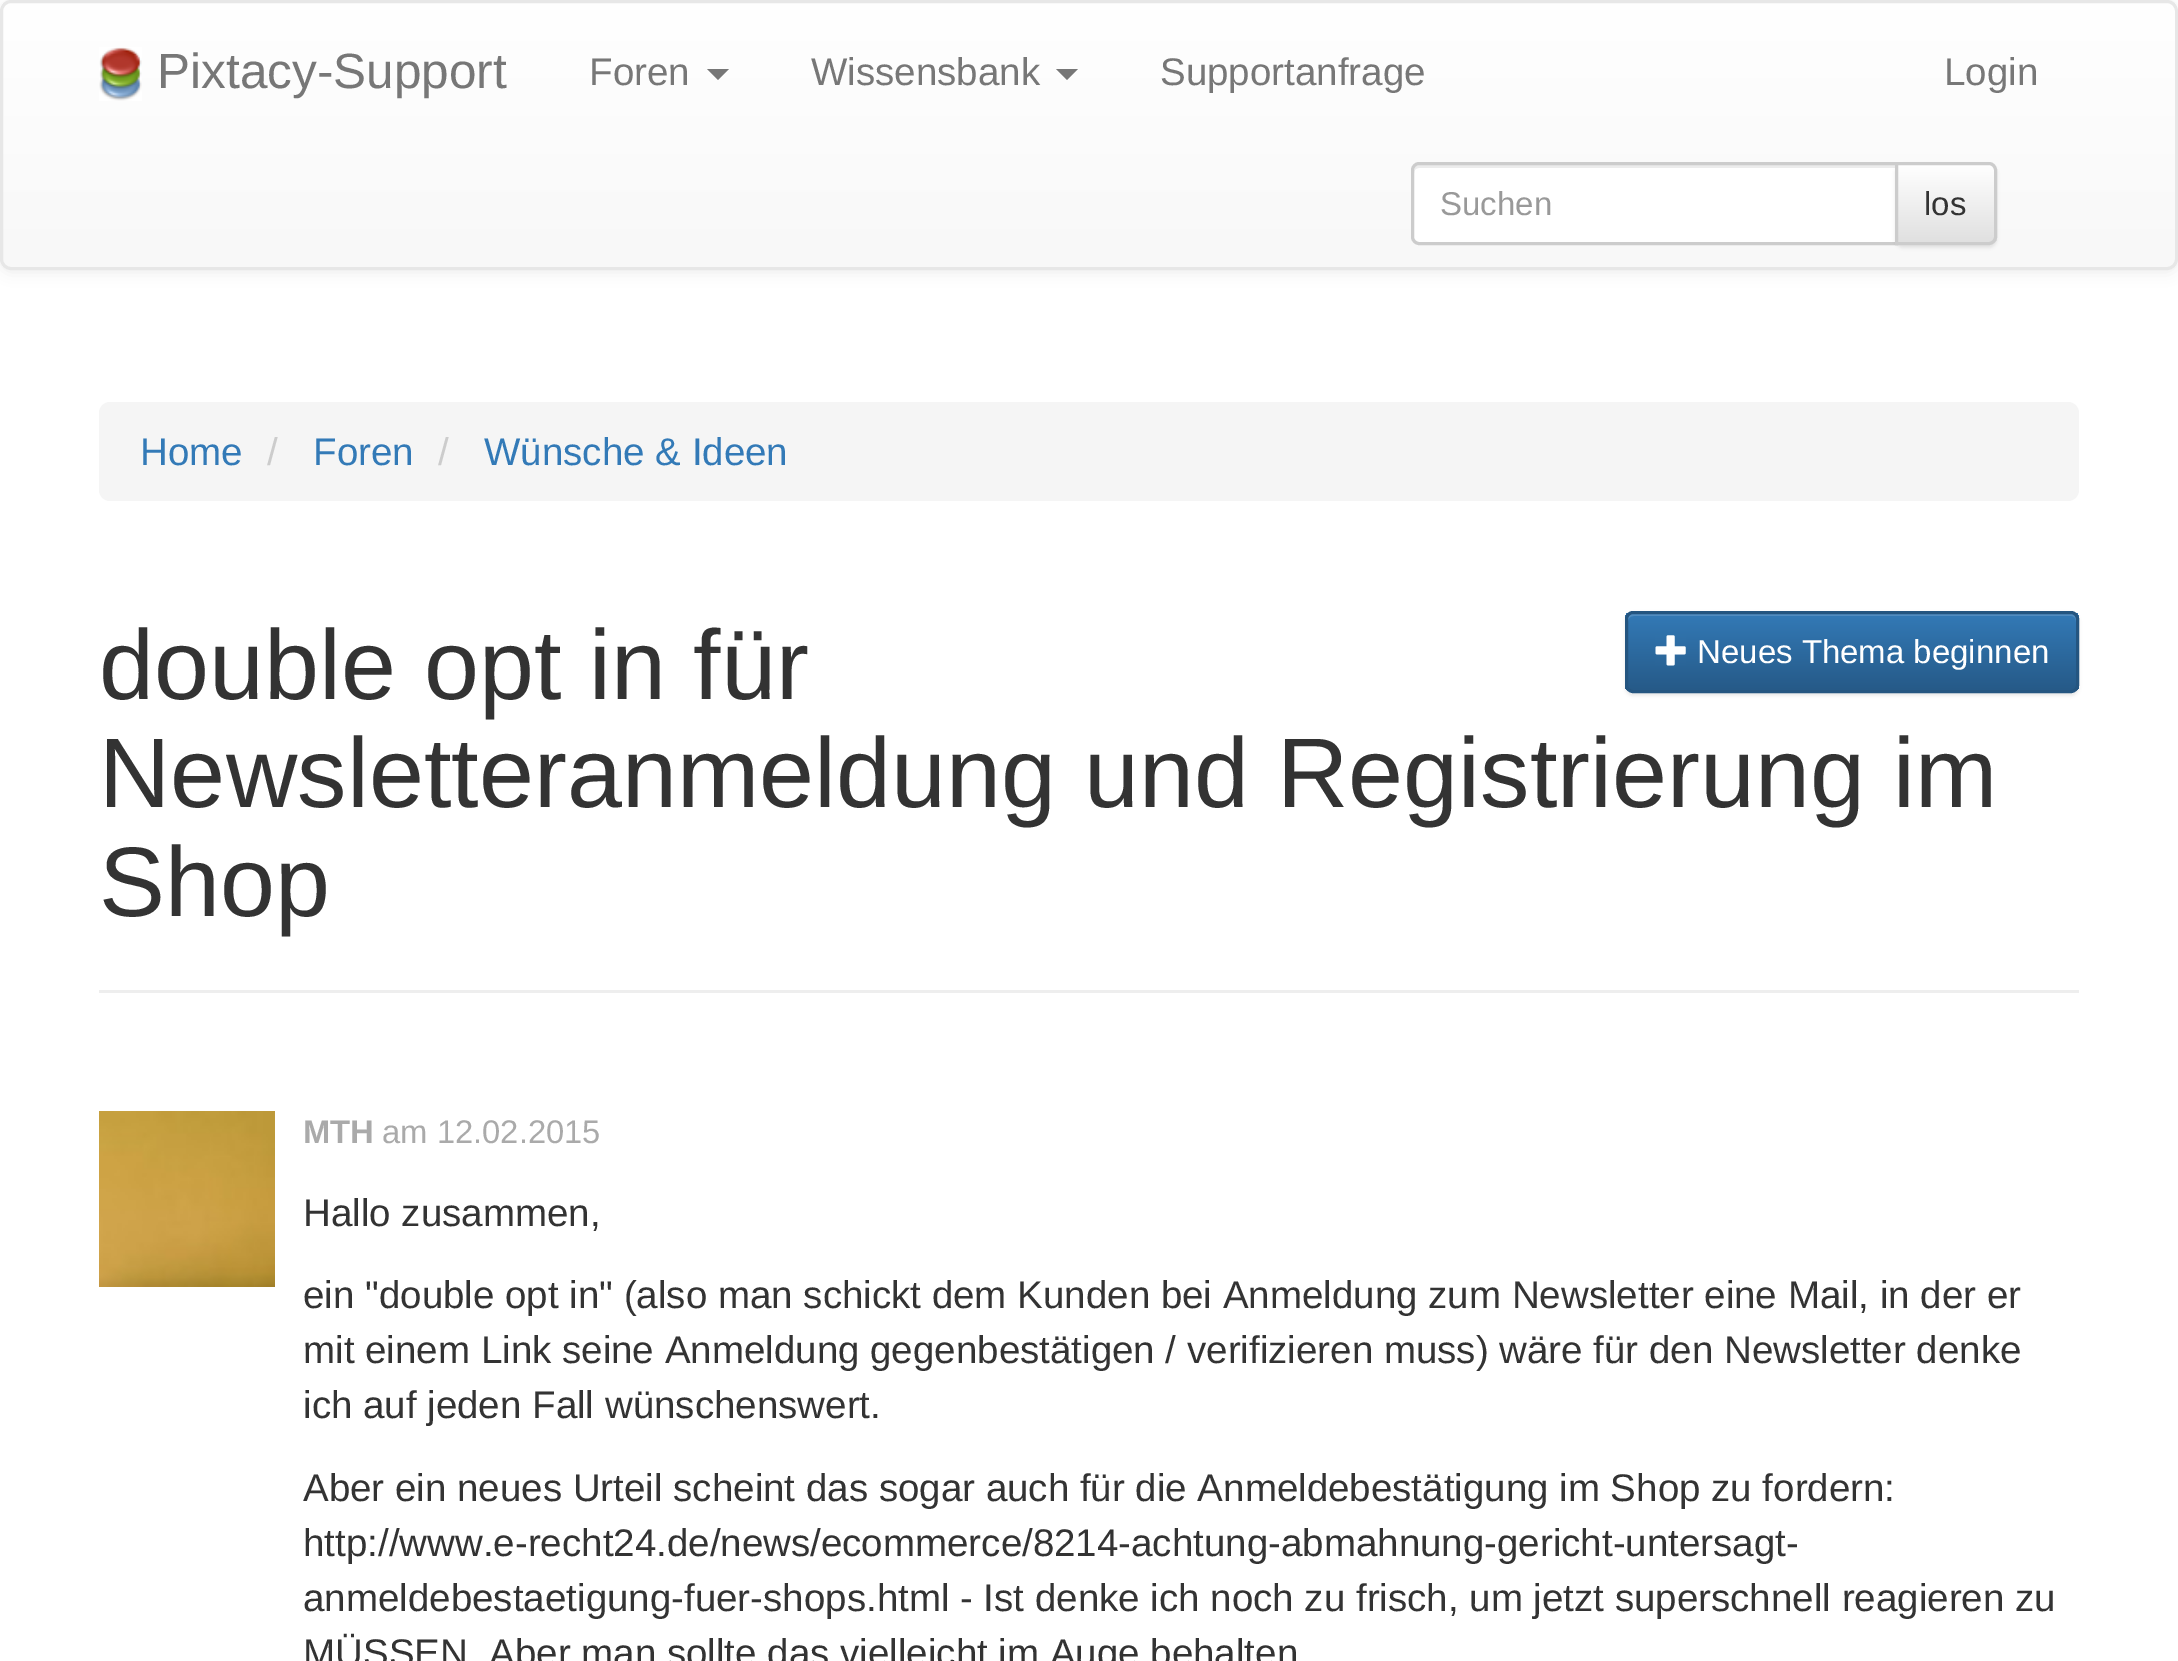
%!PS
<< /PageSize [2178 1661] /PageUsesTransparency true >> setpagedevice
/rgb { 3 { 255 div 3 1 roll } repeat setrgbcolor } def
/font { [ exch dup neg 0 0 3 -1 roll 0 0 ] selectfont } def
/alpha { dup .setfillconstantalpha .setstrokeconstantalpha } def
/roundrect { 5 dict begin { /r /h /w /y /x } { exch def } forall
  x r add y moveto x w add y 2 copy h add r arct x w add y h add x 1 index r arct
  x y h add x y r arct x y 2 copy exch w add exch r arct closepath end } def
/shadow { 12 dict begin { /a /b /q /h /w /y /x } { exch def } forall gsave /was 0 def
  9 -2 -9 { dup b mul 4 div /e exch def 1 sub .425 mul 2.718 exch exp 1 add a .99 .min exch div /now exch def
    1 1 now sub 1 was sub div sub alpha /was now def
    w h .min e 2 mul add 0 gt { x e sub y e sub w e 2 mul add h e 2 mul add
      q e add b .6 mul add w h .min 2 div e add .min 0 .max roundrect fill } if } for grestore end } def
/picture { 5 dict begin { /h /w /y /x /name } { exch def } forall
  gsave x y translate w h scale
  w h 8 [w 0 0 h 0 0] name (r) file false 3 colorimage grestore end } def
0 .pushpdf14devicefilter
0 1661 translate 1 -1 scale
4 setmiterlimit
255 255 255 rgb
0 0 2178 1661 rectfill
0 0 0 rgb
0 3 2178 269 11 7 0.07 shadow
gsave
0 0 2178 270 11 roundrect clip newpath
gsave 0 3 moveto 2178 3 lineto 2178 267 lineto 0 267 lineto closepath clip newpath
<< /ShadingType 2 /ColorSpace /DeviceRGB /Coords [1089 2.7 1089 267] /Extend [true true] /Function << /FunctionType 2 /Domain [0 1] /C0 [1 1 1] /C1 [0.973 0.973 0.973] /N 1 >> >> shfill grestore
grestore
231 231 231 rgb
3 setlinewidth
1.5 1.5 2175 267 9.5 roundrect stroke
(img/1.rgb) 99 47 43 54 picture
119 119 119 rgb
707 69 moveto 729 69 lineto 718 80 lineto closepath fill
1056 69 moveto 1078 69 lineto 1067 80 lineto closepath fill
255 255 255 rgb
1419 162 moveto 1898 162 lineto 1898 245 lineto 1419 245 lineto 1414.5 245 1411 241.5 1411 237 curveto 1411 170 lineto 1411 165.5 1414.5 162 1419 162 curveto closepath fill
236 236 236 rgb
1419 168 moveto 1895 168 lineto 1895 165 lineto 1420 165 lineto 1415 165 1414 169 1414 173 curveto 1414 170 1416 168 1419 168 curveto closepath fill
204 204 204 rgb
1419 163.5 moveto 1896.5 163.5 lineto 1896.5 243.5 lineto 1419 243.5 lineto 1415.5 243.5 1412.5 240.5 1412.5 237 curveto 1412.5 170 lineto 1412.5 166.5 1415.5 163.5 1419 163.5 curveto closepath stroke
0 0 0 rgb
1895 165 102 83 8 1.5 0.07 shadow
gsave
1895 162 moveto 1989 162 lineto 1993.5 162 1997 165.5 1997 170 curveto 1997 237 lineto 1997 241.5 1993.5 245 1989 245 curveto 1895 245 lineto closepath clip newpath
gsave 1898 165 moveto 1997 165 lineto 1997 242 lineto 1898 242 lineto closepath clip newpath
<< /ShadingType 2 /ColorSpace /DeviceRGB /Coords [1946 165 1946 242] /Extend [true true] /Function << /FunctionType 2 /Domain [0 1] /C0 [1 1 1] /C1 [0.878 0.878 0.878] /N 1 >> >> shfill grestore
grestore
204 204 204 rgb
1896.5 163.5 moveto 1989 163.5 lineto 1992.5 163.5 1995.5 166.5 1995.5 170 curveto 1995.5 237 lineto 1995.5 240.5 1992.5 243.5 1989 243.5 curveto 1896.5 243.5 lineto closepath stroke
245 245 245 rgb
99 402 1980 99 11 roundrect fill
238 238 238 rgb
99 990 1980 3 rectfill
0 0 0 rgb
1625 613 454 83 8 1.5 0.07 shadow
gsave
1625 611 454 82 8 roundrect clip newpath
gsave 1625 613 moveto 2079 613 lineto 2079 690 lineto 1625 690 lineto closepath clip newpath
<< /ShadingType 2 /ColorSpace /DeviceRGB /Coords [1852 613 1852 690] /Extend [true true] /Function << /FunctionType 2 /Domain [0 1] /C0 [0.2 0.478 0.718] /C1 [0.149 0.353 0.533] /N 1 >> >> shfill grestore
grestore
0.15 alpha
255 255 255 rgb
1634 616 moveto 2071 616 lineto 2074 616 2076 618 2076 622 curveto 2076 619 lineto 2076 616 2073 613 2070 613 curveto 1634 613 lineto 1631 613 1628 616 1628 619 curveto 1628 622 lineto 1628 618 1630 616 1634 616 curveto closepath fill
1 alpha
36 85 128 rgb
1626.5 612.5 451 79 6.5 roundrect stroke
(img/2.rgb) 1655 635 31 31 picture
(img/3.rgb) 99 1111 176 176 picture
/LiberationSans-Regular 49.5 font
119 119 119 rgb
157 88 moveto (Pixtacy-Support) show
/LiberationSans-Regular 38.5 font
[
  [(Foren) 589 85]
  [(Wissensbank) 811 85]
  [(Supportanfrage) 1160 85]
  [(Login) 1944 85]
] { aload pop moveto show } forall
/LiberationSans-Regular 33 font
153 153 153 rgb
1440 215 moveto (Suchen) show
51 51 51 rgb
1924 215 moveto (los) show
/LiberationSans-Regular 38.5 font
51 122 183 rgb
140 465 moveto (Home) show
204 204 204 rgb
267 465 moveto (/) show
51 122 183 rgb
313 465 moveto (Foren) show
204 204 204 rgb
438 465 moveto (/) show
51 122 183 rgb
484 465 moveto (Wünsche & Ideen) show
/LiberationSans-Regular 99 font
51 51 51 rgb
[
  [(double opt in für) 99 699]
  [(Newsletteranmeldung und Registrierung im) 99 807]
  [(Shop) 99 916]
] { aload pop moveto show } forall
/LiberationSans-Regular 33 font
255 255 255 rgb
1697 663 moveto (Neues Thema beginnen) show
/LiberationSans-Bold 32.75 font
170 170 170 rgb
303 1143 moveto (MTH) show
/LiberationSans-Regular 32.75 font
382 1143 moveto (am 12.02.2015) show
/LiberationSans-Regular 38.5 font
51 51 51 rgb
[
  [(Hallo zusammen,) 303 1226]
  [(ein "double opt in" \(also man schickt dem Kunden bei Anmeldung zum Newsletter eine Mail, in der er) 303 1308]
  [(mit einem Link seine Anmeldung gegenbestätigen / verifizieren muss\) wäre für den Newsletter denke) 303 1363]
  [(ich auf jeden Fall wünschenswert.) 303 1418]
  [(Aber ein neues Urteil scheint das sogar auch für die Anmeldebestätigung im Shop zu fordern:) 303 1501]
  [(http://www.e-recht24.de/news/ecommerce/8214-achtung-abmahnung-gericht-untersagt-) 303 1556]
  [(anmeldebestaetigung-fuer-shops.html - Ist denke ich noch zu frisch, um jetzt superschnell reagieren zu) 303 1611]
  [(MÜSSEN. Aber man sollte das vielleicht im Auge behalten) 303 1666]
] { aload pop moveto show } forall
.poppdf14devicefilter showpage
